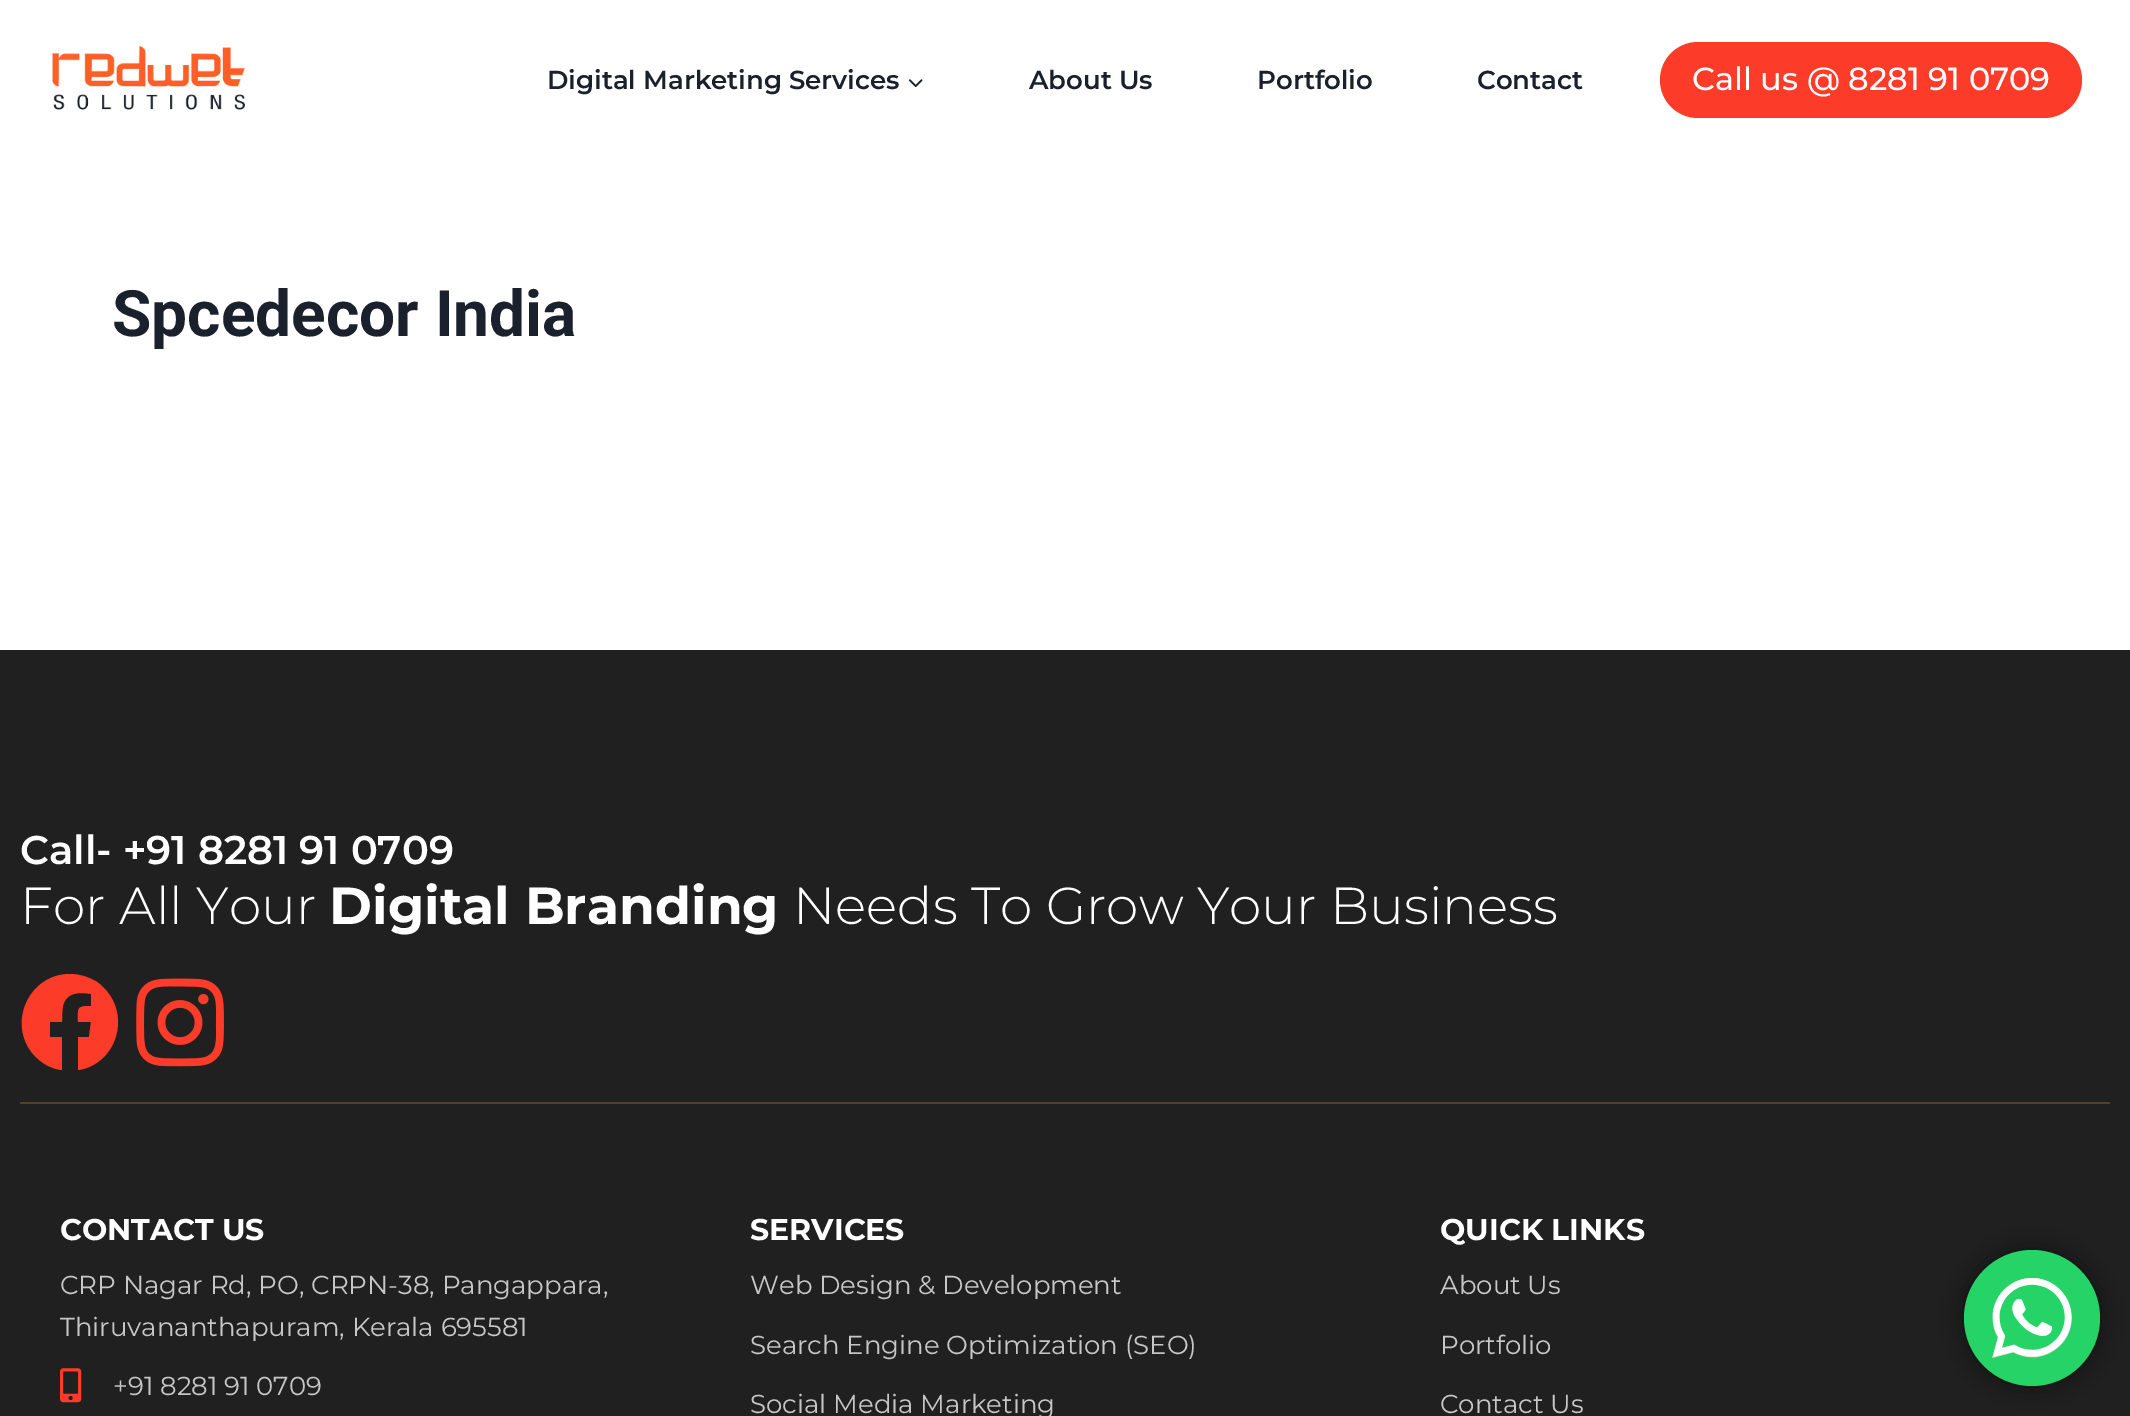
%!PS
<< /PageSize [2130 1416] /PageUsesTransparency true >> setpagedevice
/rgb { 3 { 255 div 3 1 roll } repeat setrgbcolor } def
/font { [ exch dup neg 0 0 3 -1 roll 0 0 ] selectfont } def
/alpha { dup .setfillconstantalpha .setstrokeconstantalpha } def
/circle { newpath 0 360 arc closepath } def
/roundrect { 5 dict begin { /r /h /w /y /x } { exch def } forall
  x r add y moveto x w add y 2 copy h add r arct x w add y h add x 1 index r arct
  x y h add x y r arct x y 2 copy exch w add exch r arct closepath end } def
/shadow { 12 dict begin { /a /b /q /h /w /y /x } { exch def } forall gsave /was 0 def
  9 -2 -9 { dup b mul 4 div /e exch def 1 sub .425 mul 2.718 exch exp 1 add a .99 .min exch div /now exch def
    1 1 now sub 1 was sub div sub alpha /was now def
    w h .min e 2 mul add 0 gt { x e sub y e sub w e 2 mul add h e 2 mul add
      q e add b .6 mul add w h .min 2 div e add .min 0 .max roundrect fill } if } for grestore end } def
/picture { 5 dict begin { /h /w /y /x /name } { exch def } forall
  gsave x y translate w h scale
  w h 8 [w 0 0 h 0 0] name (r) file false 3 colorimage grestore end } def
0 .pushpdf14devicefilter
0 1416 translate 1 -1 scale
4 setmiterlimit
255 255 255 rgb
0 0 2130 1416 rectfill
(img/1.rgb) 52 45 193 65 picture
(img/2.rgb) 908 79 15 9 picture
252 59 41 rgb
1660 42 422 76 38 roundrect fill
32 32 32 rgb
0 650 2130 766 rectfill
252 59 41 rgb
118 1022 moveto 118 1046 101 1067 78 1070 curveto 78 1037 lineto 89 1037 lineto 91 1022 lineto 78 1022 lineto 78 1008 76 1006 91 1006 curveto 91 994 lineto 80 992 66 992 63 1006 curveto 62 1011 62 1017 62 1022 curveto 50 1022 lineto 50 1037 lineto 62 1037 lineto 62 1070 lineto 51 1069 41 1063 33 1054 curveto 7 1023 29 974 70 974 curveto 80 974 89 977 97 982 curveto 110 991 118 1006 118 1022 curveto closepath fill
(img/3.rgb) 136 978 88 89 picture
83 66 27 rgb
20 1102 2090 2 rectfill
(img/4.rgb) 60 1368 22 35 picture
0 0 0 rgb
1964 1250 136 136 68 11 0.5 shadow
37 211 102 rgb
2032 1318 68 circle fill
(img/5.rgb) 1992 1278 80 80 picture
/Montserrat-SemiBold 26 font
26 32 44 rgb
[
  [(Digital Marketing Services) 547 89]
  [(About Us) 1029 89]
  [(Portfolio) 1257 89]
  [(Contact) 1477 89]
] { aload pop moveto show } forall
/Montserrat-Medium 32 font
255 255 255 rgb
1692 90 moveto (Call us @ 8281 91 0709) show
/Roboto-Bold 64 font
26 32 44 rgb
112 336 moveto (Spcedecor India) show
/Montserrat-SemiBold 40 font
255 255 255 rgb
20 864 moveto (Call- +91 8281 91 0709) show
/Montserrat-Light 52 font
20 924 moveto (For All Your) show
/Montserrat-Bold 52 font
329 924 moveto (Digital Branding) show
/Montserrat-Light 52 font
793 924 moveto (Needs To Grow Your Business) show
/Montserrat-Bold 30 font
60 1240 moveto (CONTACT US) show
/Montserrat-Regular 26 font
199 199 199 rgb
[
  [(CRP Nagar Rd, PO, CRPN-38, Pangappara,) 60 1294]
  [(Thiruvananthapuram, Kerala 695581) 60 1336]
  [(+91 8281 91 0709) 113 1395]
] { aload pop moveto show } forall
/Montserrat-Bold 30 font
255 255 255 rgb
750 1240 moveto (SERVICES) show
/Montserrat-Regular 26 font
199 199 199 rgb
[
  [(Web Design & Development) 750 1294]
  [(Search Engine Optimization \(SEO\)) 750 1354]
  [(Social Media Marketing) 750 1413]
] { aload pop moveto show } forall
/Montserrat-Bold 30 font
255 255 255 rgb
1440 1240 moveto (QUICK LINKS) show
/Montserrat-Regular 26 font
199 199 199 rgb
[
  [(About Us) 1440 1294]
  [(Portfolio) 1440 1354]
  [(Contact Us) 1440 1413]
] { aload pop moveto show } forall
.poppdf14devicefilter showpage
